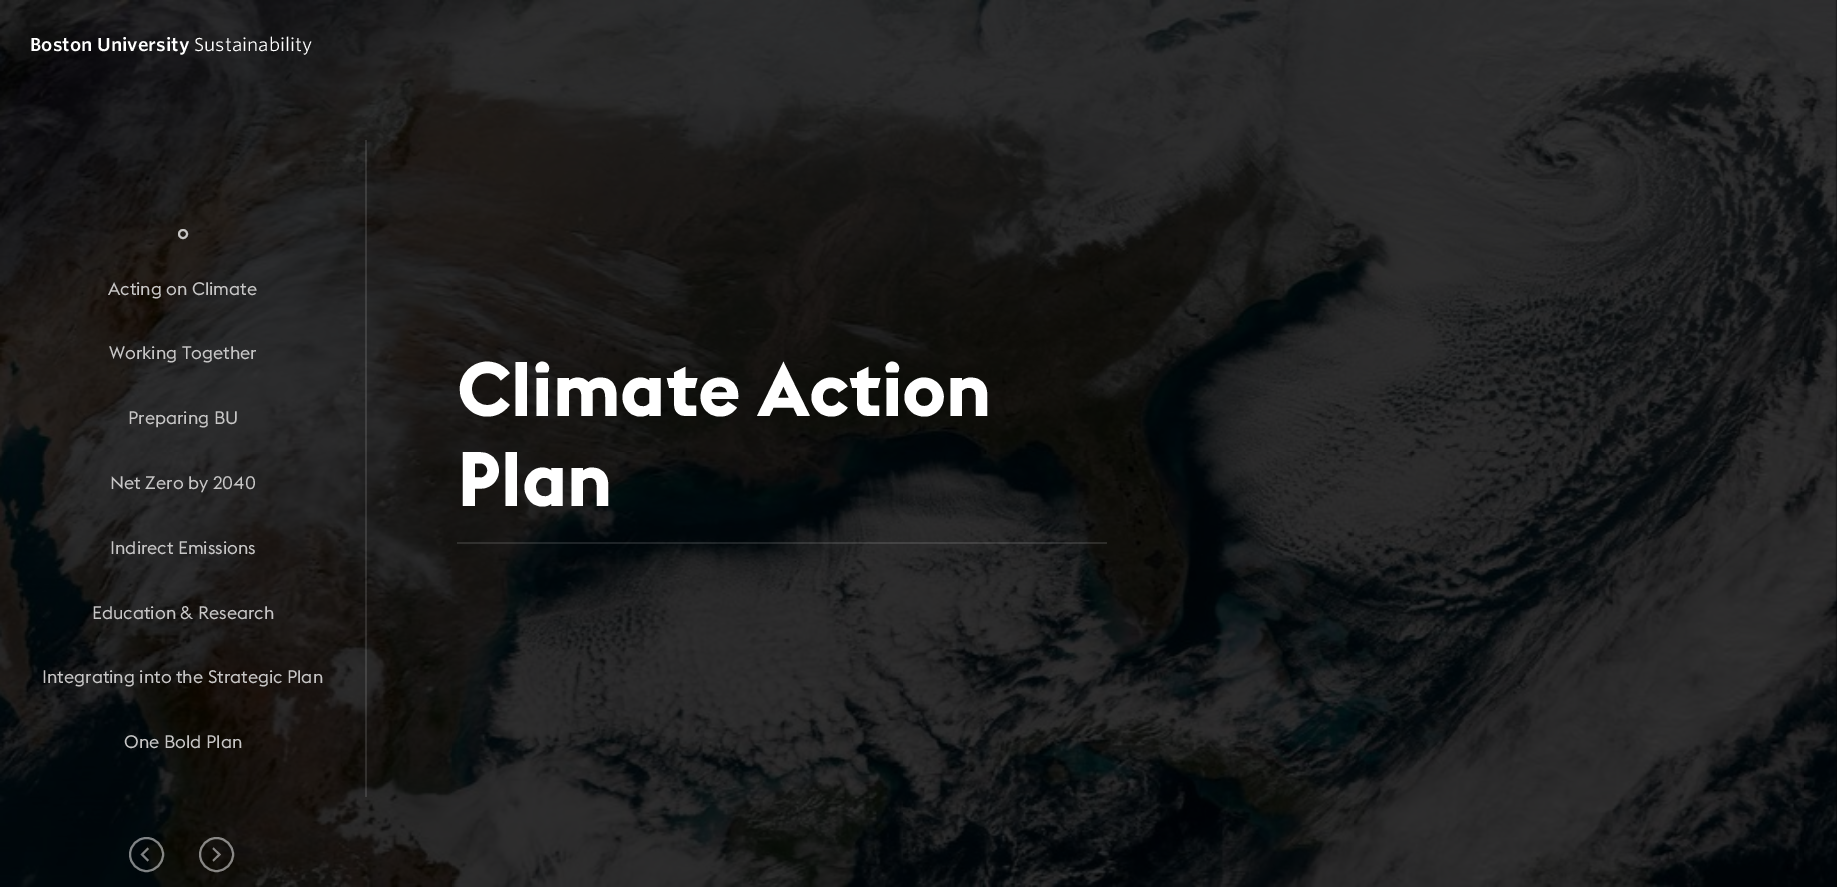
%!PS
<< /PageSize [1837 887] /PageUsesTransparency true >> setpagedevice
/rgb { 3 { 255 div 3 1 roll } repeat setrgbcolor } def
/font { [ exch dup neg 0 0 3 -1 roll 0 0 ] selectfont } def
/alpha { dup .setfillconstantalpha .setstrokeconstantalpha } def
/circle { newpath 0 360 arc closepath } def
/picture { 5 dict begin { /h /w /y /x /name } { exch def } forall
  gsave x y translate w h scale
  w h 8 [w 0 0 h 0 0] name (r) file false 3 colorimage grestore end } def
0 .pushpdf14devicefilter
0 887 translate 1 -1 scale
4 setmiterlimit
0 0 0 rgb
0 0 1837 887 rectfill
(img/1.rgb) 0 0 1837 887 picture
0.12 alpha
255 255 255 rgb
365 140 2 657 rectfill
0.75 alpha
2 setlinewidth
183 234 4 circle stroke
0.5 alpha
146.5 854.5 16.5 circle stroke
147.5 861.5 moveto 140.5 854.5 lineto 143.5 854.5 lineto 149 860 lineto closepath fill
140.5 854.5 moveto 147.5 847.5 lineto 149 849 lineto 143.5 854.5 lineto closepath fill
216.5 854.5 16.5 circle stroke
213.5 847.5 moveto 221 854.5 lineto 218 854.5 lineto 212.5 849 lineto closepath fill
221 854.5 moveto 213.5 861.5 lineto 212.5 860 lineto 218 854.5 lineto closepath fill
0.12 alpha
457 542 650 2 rectfill
/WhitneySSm-SemiBold 18 font
1 alpha
30 51 moveto (Boston University) show
/WhitneySSm-Regular 18 font
194 51 moveto (Sustainability) show
/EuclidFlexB-Regular 18 font
199 198 198 rgb
[
  [(Acting on Climate) 108 295]
  [(Working Together) 109 359]
  [(Preparing BU) 128 424]
  [(Net Zero by 2040) 110 489]
  [(Indirect Emissions) 110 554]
  [(Education & Research) 92 619]
  [(Integrating into the Strategic Plan) 42 683]
  [(One Bold Plan) 124 748]
] { aload pop moveto show } forall
/EuclidFlexB-Bold 76 font
255 255 255 rgb
457 416 moveto (Climate Action) show
457 506 moveto (Plan) show
.poppdf14devicefilter showpage
